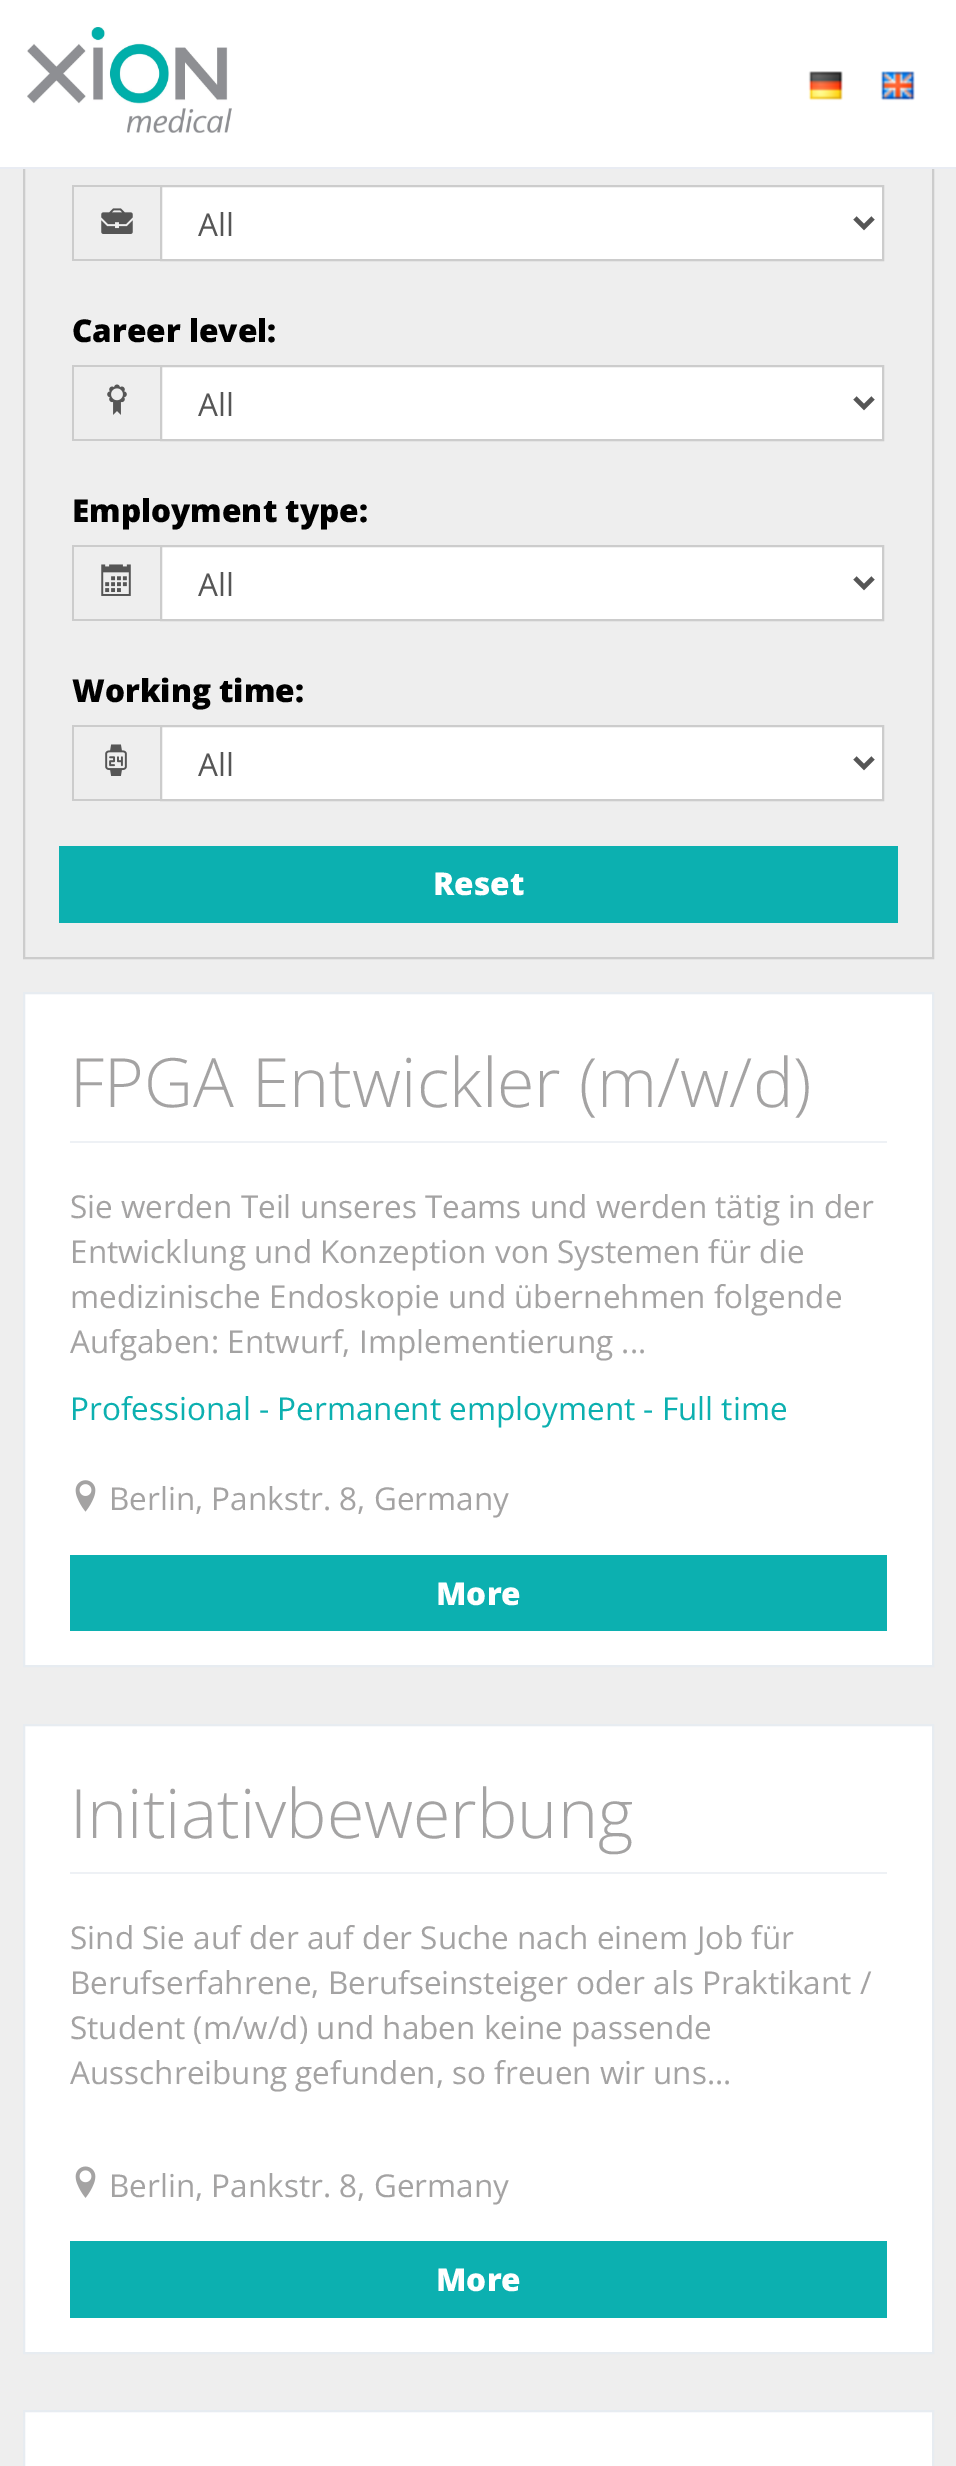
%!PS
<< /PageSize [956 2466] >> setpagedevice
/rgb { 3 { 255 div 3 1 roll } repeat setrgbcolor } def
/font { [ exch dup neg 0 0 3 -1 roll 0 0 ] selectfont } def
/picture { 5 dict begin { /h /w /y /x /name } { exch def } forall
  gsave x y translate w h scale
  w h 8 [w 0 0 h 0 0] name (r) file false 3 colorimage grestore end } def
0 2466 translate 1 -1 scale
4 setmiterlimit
238 238 238 rgb
0 0 956 2466 rectfill
204 204 204 rgb
2 setlinewidth
24 -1 909 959 rectstroke
255 255 255 rgb
0 0 956 167 rectfill
233 236 243 rgb
0 167 956 2 rectfill
(img/1.rgb) 27 27 205 106 picture
(img/2.rgb) 808 71 35 30 picture
(img/3.rgb) 880 71 35 30 picture
[
  [72 185 88 2 204 204 204]
  [72 259 88 2 204 204 204]
  [72 185 2 76 204 204 204]
] { aload pop rgb rectfill } forall
(img/4.rgb) 101 208 32 26 picture
255 255 255 rgb
161 186 moveto 883 186 lineto 883 260 lineto 161 260 lineto closepath gsave fill grestore
204 204 204 rgb
stroke
85 85 85 rgb
4.5 setlinewidth
855 218 moveto 864 227 lineto 873 218 lineto stroke
[
  [72 365 88 2 204 204 204]
  [72 439 88 2 204 204 204]
  [72 365 2 76 204 204 204]
] { aload pop rgb rectfill } forall
(img/5.rgb) 107 384 20 31 picture
255 255 255 rgb
161 366 moveto 883 366 lineto 883 440 lineto 161 440 lineto closepath gsave fill grestore
204 204 204 rgb
2 setlinewidth
stroke
85 85 85 rgb
4.5 setlinewidth
855 398 moveto 864 407 lineto 873 398 lineto stroke
[
  [72 545 88 2 204 204 204]
  [72 619 88 2 204 204 204]
  [72 545 2 76 204 204 204]
] { aload pop rgb rectfill } forall
(img/6.rgb) 101 564 30 32 picture
255 255 255 rgb
161 546 moveto 883 546 lineto 883 620 lineto 161 620 lineto closepath gsave fill grestore
204 204 204 rgb
2 setlinewidth
stroke
85 85 85 rgb
4.5 setlinewidth
855 578 moveto 864 587 lineto 873 578 lineto stroke
[
  [72 725 88 2 204 204 204]
  [72 799 88 2 204 204 204]
  [72 725 2 76 204 204 204]
] { aload pop rgb rectfill } forall
(img/7.rgb) 105 744 22 32 picture
255 255 255 rgb
161 726 moveto 883 726 lineto 883 800 lineto 161 800 lineto closepath gsave fill grestore
204 204 204 rgb
2 setlinewidth
stroke
85 85 85 rgb
4.5 setlinewidth
855 758 moveto 864 767 lineto 873 758 lineto stroke
12 176 176 rgb
59 846 839 77 rectfill
255 255 255 rgb
24 993 moveto 933 993 lineto 933 1666 lineto 24 1666 lineto closepath gsave fill grestore
231 236 241 rgb
2 setlinewidth
stroke
238 241 245 rgb
70 1141 817 2 rectfill
(img/8.rgb) 75 1480 21 32 picture
12 176 176 rgb
70 1555 817 76 rectfill
255 255 255 rgb
24 1725 moveto 933 1725 lineto 933 2353 lineto 24 2353 lineto closepath gsave fill grestore
231 236 241 rgb
stroke
238 241 245 rgb
70 1872 817 2 rectfill
(img/9.rgb) 75 2166 21 32 picture
12 176 176 rgb
70 2241 817 77 rectfill
255 255 255 rgb
24 2411 moveto 933 2411 lineto 933 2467 lineto 24 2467 lineto closepath gsave fill grestore
231 236 241 rgb
stroke
/OpenSans-Regular 31.5 font
85 85 85 rgb
198 236 moveto (All) show
/OpenSans-ExtraBold 31.5 font
0 0 0 rgb
72 342 moveto (Career level:) show
/OpenSans-Regular 31.5 font
85 85 85 rgb
198 416 moveto (All) show
/OpenSans-ExtraBold 31.5 font
0 0 0 rgb
72 522 moveto (Employment type:) show
/OpenSans-Regular 31.5 font
85 85 85 rgb
198 596 moveto (All) show
/OpenSans-ExtraBold 31.5 font
0 0 0 rgb
72 702 moveto (Working time:) show
/OpenSans-Regular 31.5 font
85 85 85 rgb
198 776 moveto (All) show
/OpenSans-ExtraBold 31.5 font
255 255 255 rgb
433 895 moveto (Reset) show
/OpenSans-Light 68 font
164 163 163 rgb
70 1107 moveto (FPGA Entwickler \(m/w/d\)) show
/OpenSans-Regular 31.5 font
[
  [(Sie werden Teil unseres Teams und werden tätig in der) 70 1218]
  [(Entwicklung und Konzeption von Systemen für die) 70 1263]
  [(medizinische Endoskopie und übernehmen folgende) 70 1308]
  [(Aufgaben: Entwurf, Implementierung ...) 70 1353]
] { aload pop moveto show } forall
12 176 176 rgb
70 1420 moveto (Professional - Permanent employment - Full time) show
164 163 163 rgb
109 1510 moveto (Berlin, Pankstr. 8, Germany) show
/OpenSans-ExtraBold 31.5 font
255 255 255 rgb
436 1605 moveto (More) show
/OpenSans-Light 68 font
164 163 163 rgb
70 1838 moveto (Initiativbewerbung) show
/OpenSans-Regular 31.5 font
[
  [(Sind Sie auf der auf der Suche nach einem Job für) 70 1949]
  [(Berufserfahrene, Berufseinsteiger oder als Praktikant /) 70 1994]
  [(Student \(m/w/d\) und haben keine passende) 70 2039]
  [(Ausschreibung gefunden, so freuen wir uns...) 70 2084]
  [(Berlin, Pankstr. 8, Germany) 109 2197]
] { aload pop moveto show } forall
/OpenSans-ExtraBold 31.5 font
255 255 255 rgb
436 2291 moveto (More) show
showpage
